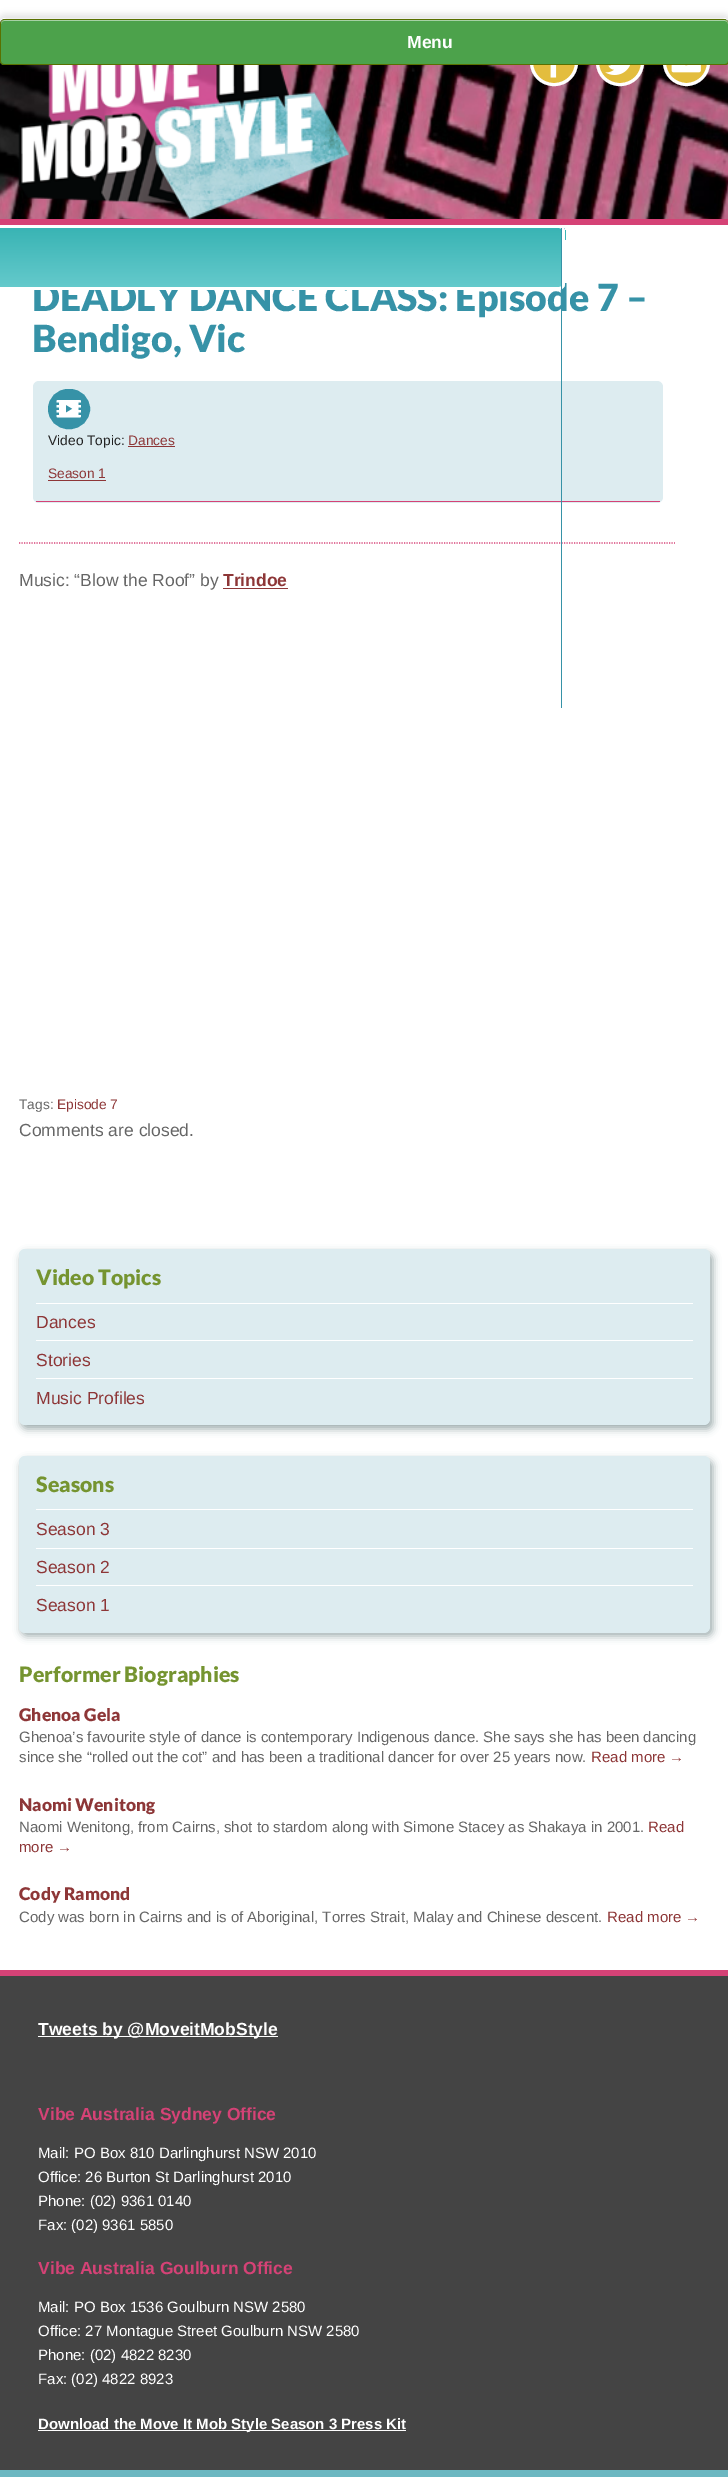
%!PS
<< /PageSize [728 2477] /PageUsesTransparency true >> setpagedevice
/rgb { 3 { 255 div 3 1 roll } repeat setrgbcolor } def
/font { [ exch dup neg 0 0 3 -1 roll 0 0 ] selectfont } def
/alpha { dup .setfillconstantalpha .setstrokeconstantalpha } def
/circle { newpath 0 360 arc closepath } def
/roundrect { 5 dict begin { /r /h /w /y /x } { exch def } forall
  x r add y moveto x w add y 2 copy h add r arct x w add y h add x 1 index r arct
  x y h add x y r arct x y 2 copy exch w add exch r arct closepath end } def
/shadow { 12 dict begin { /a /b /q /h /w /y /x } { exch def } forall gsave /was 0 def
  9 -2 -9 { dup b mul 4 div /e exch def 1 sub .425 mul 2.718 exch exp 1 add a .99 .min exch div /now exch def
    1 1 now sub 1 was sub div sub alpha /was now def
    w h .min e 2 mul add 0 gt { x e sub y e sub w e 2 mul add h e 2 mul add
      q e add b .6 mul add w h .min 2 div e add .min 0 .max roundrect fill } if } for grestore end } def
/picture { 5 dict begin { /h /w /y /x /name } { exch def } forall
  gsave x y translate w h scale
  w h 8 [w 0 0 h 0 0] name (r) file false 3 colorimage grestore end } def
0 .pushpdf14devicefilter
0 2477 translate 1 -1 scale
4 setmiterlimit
255 255 255 rgb
0 0 728 2477 rectfill
0 0 0 rgb
-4 14 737 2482 10 3 0.1 shadow
255 255 255 rgb
0 18 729 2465 6 roundrect fill
4 18 722 1 rectfill
(img/1.rgb) 0 18 728 201 picture
213 66 118 rgb
0 219 728 6 rectfill
227 189 62 rgb
531.5 40.5 45 44 22 roundrect gsave fill grestore
255 255 255 rgb
3 setlinewidth
stroke
227 189 62 rgb
597.5 40.5 45 44 22 roundrect gsave fill grestore
255 255 255 rgb
stroke
227 189 62 rgb
686.5 62.5 22 circle gsave fill grestore
255 255 255 rgb
stroke
76 162 75 rgb
0 24 moveto 0 61 lineto 0 63 2 65 4 65 curveto 725 65 lineto 727 65 728 64 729 62 curveto 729 24 lineto 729 22 727 20 724 19 curveto 4 19 lineto 2 20 0 22 0 24 curveto closepath fill
0.5 alpha
255 255 255 rgb
4 21 moveto 725 21 lineto 726 21 728 22 728 24 curveto 728 22 lineto 728 21 727 20 726 20 curveto 4 20 lineto 2 20 1 21 1 22 curveto 1 24 lineto 1 22 2 21 4 21 curveto closepath fill
1 alpha
89 112 0 rgb
0 24 moveto 0 61 lineto 0 63 2 65 4 65 curveto 725 65 lineto 727 65 728 64 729 62 curveto 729 24 lineto 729 22 727 20 724 19 curveto 4 19 lineto 2 20 0 22 0 24 curveto closepath 4 20 moveto 2 20 1 21 1 23 curveto 1 61 lineto 1 63 2 64 4 64 curveto 725 64 lineto 727 64 728 63 728 61 curveto 728 23 lineto 728 21 727 20 725 20 curveto closepath eofill
(img/2.rgb) 18 65 331 154 picture
(img/3.rgb) 550 65 7 13 picture
(img/4.rgb) 605 65 25 10 picture
(img/5.rgb) 671 65 30 8 picture
213 66 118 rgb
1.2 setlinewidth
[1.25 1.25] 0 setdash
19 543 moveto 675 543 lineto stroke
221 236 240 rgb
33 381 630 122 6 roundrect fill
213 66 118 rgb
36 501 624 1 rectfill
54 146 167 rgb
49.5 390.5 39 37 18.5 roundrect gsave fill grestore
3 setlinewidth
[] 0 setdash
stroke
(img/6.rgb) 56 400 25 18 picture
[
  [128 446 47 1 141 54 55]
  [48 480 58 1 141 54 55]
  [223 588 65 1 141 54 55]
] { aload pop rgb rectfill } forall
19 52 59 rgb
21 1253 692 176 6 4 0.4 shadow
221 236 240 rgb
19 1249 691 176 6 roundrect fill
[
  [36 1303 657 1 255 255 255]
  [36 1340 657 1 255 255 255]
  [36 1378 657 1 255 255 255]
] { aload pop rgb rectfill } forall
19 52 59 rgb
21 1460 692 176 6 4 0.4 shadow
221 236 240 rgb
19 1456 691 177 6 roundrect fill
[
  [36 1509 657 1 255 255 255]
  [36 1548 657 1 255 255 255]
  [36 1585 657 1 255 255 255]
] { aload pop rgb rectfill } forall
68 68 68 rgb
0 1970 moveto 0 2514 lineto 0 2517 3 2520 6 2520 curveto 722 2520 lineto 726 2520 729 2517 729 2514 curveto 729 1970 lineto closepath fill
[
  [0 1970 728 6 213 66 118]
  [38 2036 240 1 255 255 255]
  [38 2430 368 1 255 255 255]
] { aload pop rgb rectfill } forall
109 184 193 rgb
6 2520 moveto 722 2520 lineto 726 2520 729 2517 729 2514 curveto 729 2470 lineto 0 2470 lineto 0 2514 lineto 0 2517 3 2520 6 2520 curveto closepath fill
/LiberationSans-Bold 17.5 font
255 255 255 rgb
407 48 moveto (Menu) show
/Lato-Black 37.5 font
54 146 167 rgb
32 311 moveto (DEADLY DANCE CLASS: Episode 7 –) show
gsave 0 288 moveto 563 288 lineto 565 285 lineto 565 240 lineto 565 238 566 231 564 228 curveto 0 228 lineto closepath clip newpath
<< /ShadingType 2 /ColorSpace /DeviceRGB /Coords [-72 227 -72 288] /Extend [true true] /Function << /FunctionType 2 /Domain [0 1] /C0 [0.22 0.706 0.706] /C1 [0.396 0.792 0.8] /N 1 >> >> shfill grestore
255 255 255 rgb
0 290 moveto 559 290 lineto 562 290 565 287 565 284 curveto 565 231 lineto 565 228 562 225 559 225 curveto 0 225 lineto 0 228 lineto 559 228 lineto 561 228 562 229 562 231 curveto 562 284 lineto 562 286 561 287 559 287 curveto 0 287 lineto closepath fill
54 146 167 rgb
561 228 1 480 rectfill
32 352 moveto (Bendigo, Vic) show
/LiberationSans-Regular 13.75 font
34 34 34 rgb
48 445 moveto (Video Topic:) show
141 54 55 rgb
128 445 moveto (Dances) show
48 478 moveto (Season 1) show
/LiberationSans-Regular 17.5 font
102 102 102 rgb
19 586 moveto (Music: “Blow the Roof” by) show
/LiberationSans-Bold 17.5 font
141 54 55 rgb
223 586 moveto (Trindoe) show
/LiberationSans-Regular 13.75 font
102 102 102 rgb
19 1109 moveto (Tags:) show
141 54 55 rgb
57 1109 moveto (Episode 7) show
/LiberationSans-Regular 17.5 font
102 102 102 rgb
19 1136 moveto (Comments are closed.) show
/Lato-Black 21.25 font
117 148 48 rgb
36 1285 moveto (Video Topics) show
/LiberationSans-Regular 17.5 font
141 54 55 rgb
[
  [(Dances) 36 1328]
  [(Stories) 36 1366]
  [(Music Profiles) 36 1404]
] { aload pop moveto show } forall
/Lato-Black 21.25 font
117 148 48 rgb
36 1492 moveto (Seasons) show
/LiberationSans-Regular 17.5 font
141 54 55 rgb
[
  [(Season 3) 36 1535]
  [(Season 2) 36 1573]
  [(Season 1) 36 1611]
] { aload pop moveto show } forall
/Lato-Black 21.25 font
117 148 48 rgb
19 1682 moveto (Performer Biographies) show
/Lato-Black 17.5 font
141 54 55 rgb
19 1721 moveto (Ghenoa Gela) show
/LiberationSans-Regular 15 font
102 102 102 rgb
19 1742 moveto (Ghenoa’s favourite style of dance is contemporary Indigenous dance. She says she has been dancing) show
19 1762 moveto (since she “rolled out the cot” and has been a traditional dancer for over 25 years now.) show
141 54 55 rgb
591 1762 moveto (Read more →) show
/Lato-Black 17.5 font
19 1811 moveto (Naomi Wenitong) show
/LiberationSans-Regular 15 font
102 102 102 rgb
19 1832 moveto (Naomi Wenitong, from Cairns, shot to stardom along with Simone Stacey as Shakaya in 2001.) show
141 54 55 rgb
648 1832 moveto (Read) show
19 1852 moveto (more →) show
/Lato-Black 17.5 font
19 1900 moveto (Cody Ramond) show
/LiberationSans-Regular 15 font
102 102 102 rgb
19 1922 moveto (Cody was born in Cairns and is of Aboriginal, Torres Strait, Malay and Chinese descent.) show
141 54 55 rgb
607 1922 moveto (Read more →) show
/LiberationSans-Bold 17.5 font
255 255 255 rgb
38 2035 moveto (Tweets by @MoveitMobStyle) show
213 66 118 rgb
38 2120 moveto (Vibe Australia Sydney Office) show
/LiberationSans-Regular 15 font
255 255 255 rgb
[
  [(Mail: PO Box 810 Darlinghurst NSW 2010) 38 2158]
  [(Office: 26 Burton St Darlinghurst 2010) 38 2182]
  [(Phone: \(02\) 9361 0140) 38 2206]
  [(Fax: \(02\) 9361 5850) 38 2230]
] { aload pop moveto show } forall
/LiberationSans-Bold 17.5 font
213 66 118 rgb
38 2274 moveto (Vibe Australia Goulburn Office) show
/LiberationSans-Regular 15 font
255 255 255 rgb
[
  [(Mail: PO Box 1536 Goulburn NSW 2580) 38 2312]
  [(Office: 27 Montague Street Goulburn NSW 2580) 38 2336]
  [(Phone: \(02\) 4822 8230) 38 2360]
  [(Fax: \(02\) 4822 8923) 38 2384]
] { aload pop moveto show } forall
/LiberationSans-Bold 15 font
38 2429 moveto (Download the Move It Mob Style Season 3 Press Kit) show
.poppdf14devicefilter showpage
